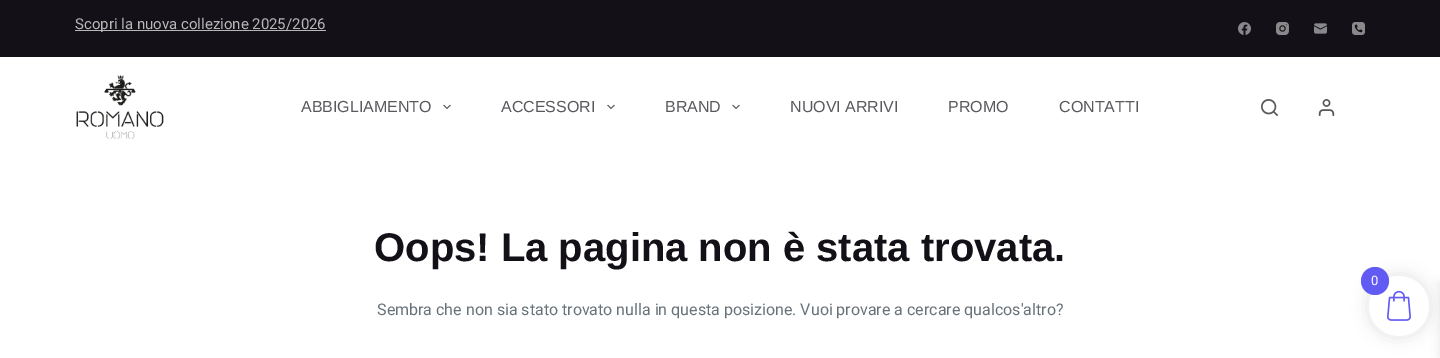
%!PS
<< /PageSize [1440 358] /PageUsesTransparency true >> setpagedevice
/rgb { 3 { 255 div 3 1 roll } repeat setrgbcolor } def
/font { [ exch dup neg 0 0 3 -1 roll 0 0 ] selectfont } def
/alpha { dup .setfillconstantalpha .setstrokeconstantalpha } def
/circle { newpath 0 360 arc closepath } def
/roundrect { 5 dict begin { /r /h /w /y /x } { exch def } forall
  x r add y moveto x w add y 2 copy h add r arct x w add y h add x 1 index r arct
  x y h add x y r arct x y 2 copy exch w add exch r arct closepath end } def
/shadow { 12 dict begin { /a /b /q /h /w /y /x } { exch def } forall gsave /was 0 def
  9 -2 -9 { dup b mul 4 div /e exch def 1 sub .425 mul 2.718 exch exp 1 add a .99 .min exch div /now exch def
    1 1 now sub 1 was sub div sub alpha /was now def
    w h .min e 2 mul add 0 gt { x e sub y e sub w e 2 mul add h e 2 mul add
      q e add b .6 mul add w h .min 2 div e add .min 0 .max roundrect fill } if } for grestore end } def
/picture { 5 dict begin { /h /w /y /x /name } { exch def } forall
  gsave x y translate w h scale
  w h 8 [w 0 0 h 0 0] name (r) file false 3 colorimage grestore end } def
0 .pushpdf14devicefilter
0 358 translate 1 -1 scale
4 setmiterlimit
255 255 255 rgb
0 0 1440 358 rectfill
19 17 23 rgb
0 0 1440 57 rectfill
184 184 185 rgb
75 30 251 1 rectfill
(img/1.rgb) 1238 22 13 13 picture
(img/2.rgb) 1276 22 13 13 picture
(img/3.rgb) 1314 23 13 11 picture
(img/4.rgb) 1352 22 13 13 picture
(img/5.rgb) 76 75 88 64 picture
(img/6.rgb) 443 104 8 6 picture
(img/6.rgb) 607 104 8 6 picture
(img/6.rgb) 732 104 8 6 picture
(img/7.rgb) 1261 99 17 17 picture
(img/8.rgb) 1318 99 17 17 picture
0 0 0 rgb
1367 274 64 64 32 7.5 0.1 shadow
1440 283 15 74 0 5 0.1 shadow
255 255 255 rgb
1399 306 30 circle fill
(img/9.rgb) 1387 290 24 31 picture
97 91 243 rgb
1375 281 14 circle fill
/Roboto-Regular 15 font
184 184 185 rgb
75 29 moveto (Scopri la nuova collezione 2025/2026) show
/LiberationSans-Regular 16 font
90 88 93 rgb
[
  [(ABBIGLIAMENTO) 301 112]
  [(ACCESSORI) 501 112]
  [(BRAND) 665 112]
  [(NUOVI ARRIVI) 790 112]
  [(PROMO) 948 112]
  [(CONTATTI) 1059 112]
] { aload pop moveto show } forall
/LiberationSans-Bold 40 font
19 17 23 rgb
374 261 moveto (Oops! La pagina non è stata trovata.) show
/Roboto-Regular 16 font
104 114 121 rgb
377 315 moveto (Sembra che non sia stato trovato nulla in questa posizione. Vuoi provare a cercare qualcos'altro?) show
/Roboto-Regular 13 font
255 255 255 rgb
1371 285 moveto (0) show
.poppdf14devicefilter showpage
